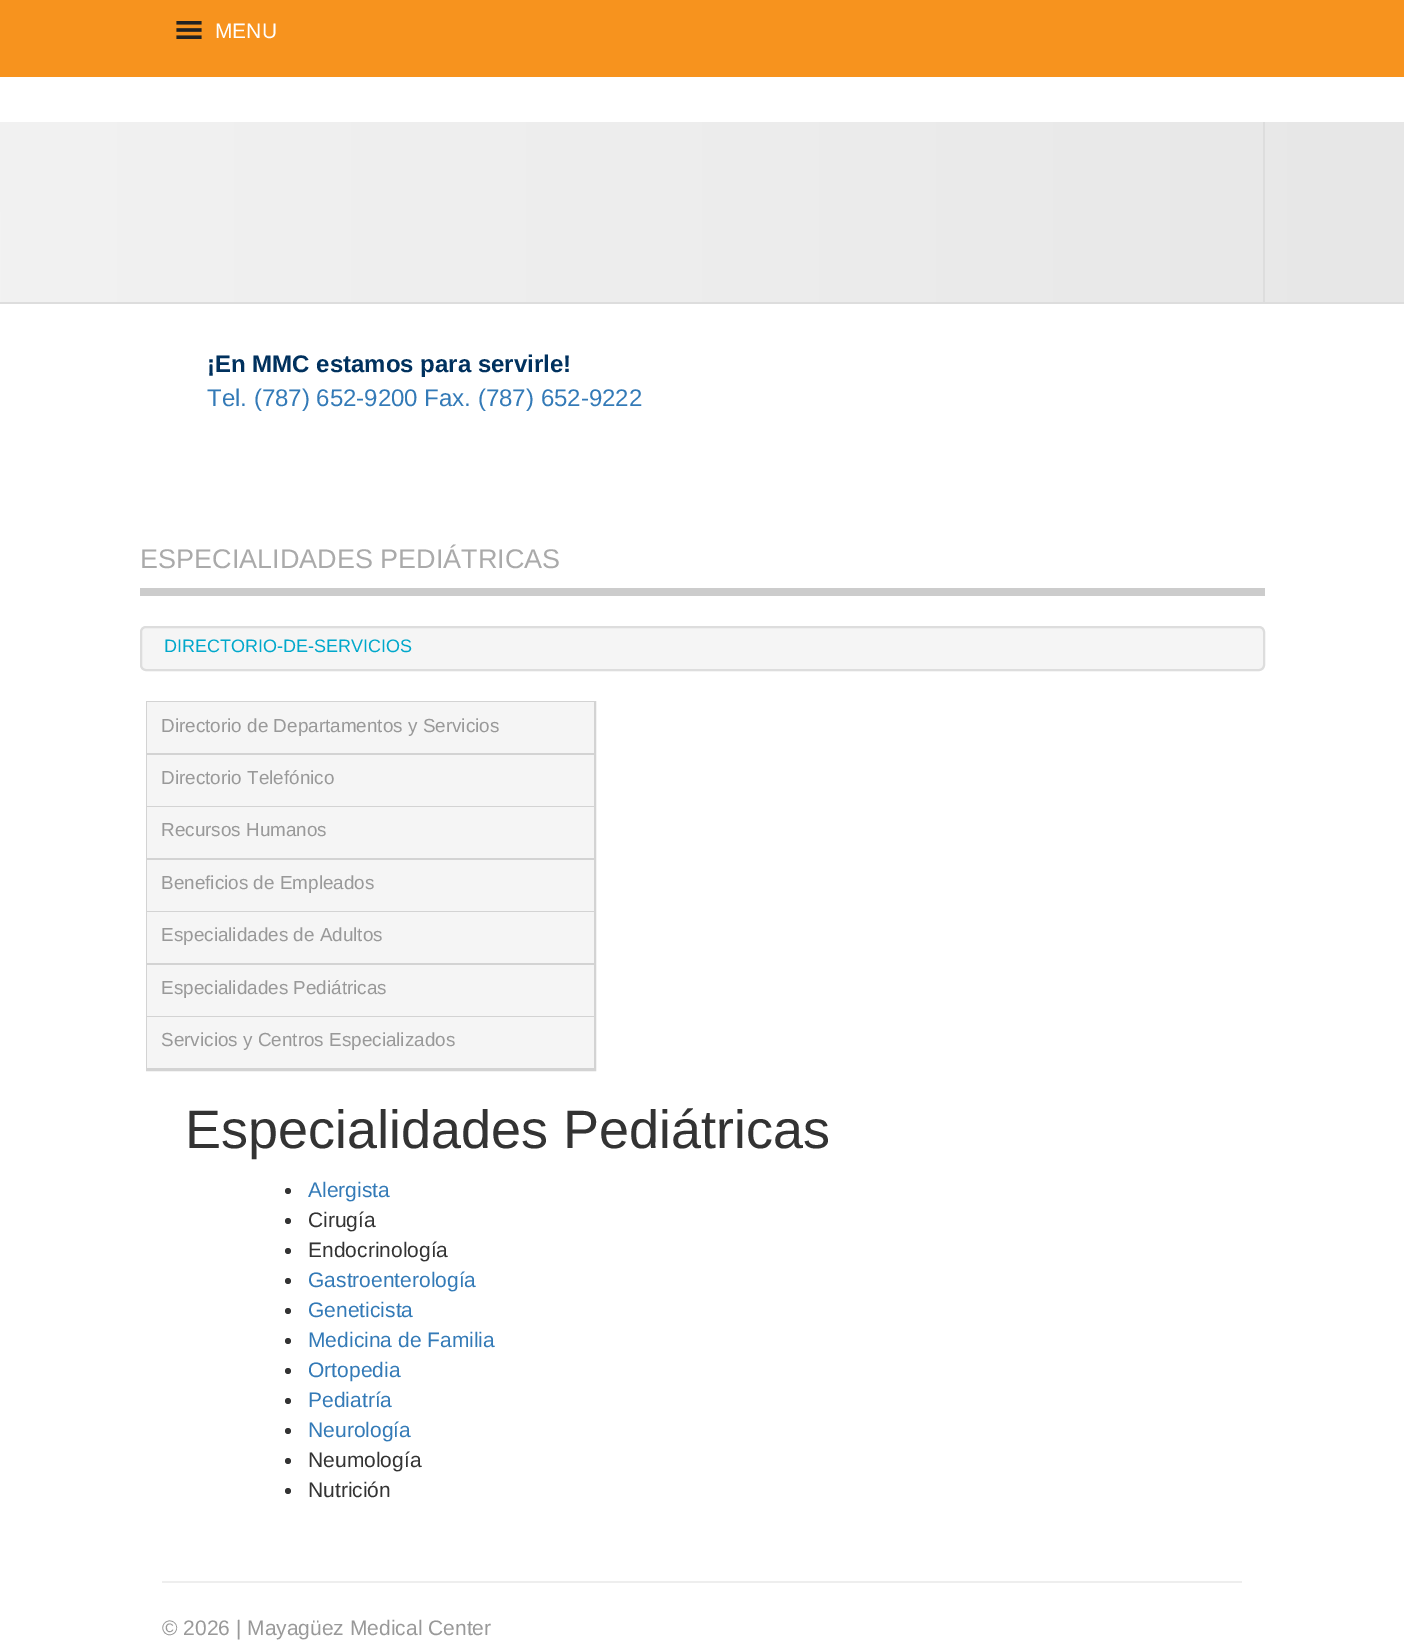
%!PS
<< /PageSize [1404 1649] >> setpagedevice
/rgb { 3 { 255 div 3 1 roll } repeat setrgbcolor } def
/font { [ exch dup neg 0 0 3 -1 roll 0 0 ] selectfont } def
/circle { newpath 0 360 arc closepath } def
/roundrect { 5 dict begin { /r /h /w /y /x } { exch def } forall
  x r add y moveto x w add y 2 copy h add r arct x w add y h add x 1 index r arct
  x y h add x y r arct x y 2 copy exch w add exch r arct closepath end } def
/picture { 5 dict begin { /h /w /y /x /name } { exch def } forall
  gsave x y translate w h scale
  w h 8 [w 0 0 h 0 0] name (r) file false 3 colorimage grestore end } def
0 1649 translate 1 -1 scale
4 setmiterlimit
255 255 255 rgb
0 0 1404 1649 rectfill
247 147 30 rgb
0 0 1404 77 rectfill
(img/1.rgb) 176 21 26 18 picture
gsave 0 122 moveto 1404 122 lineto 1404 302 lineto 0 302 lineto closepath clip newpath
<< /ShadingType 2 /ColorSpace /DeviceRGB /Coords [0 212 1404 211] /Extend [true true] /Function << /FunctionType 2 /Domain [0 1] /C0 [0.949 0.949 0.949] /C1 [0.906 0.906 0.906] /N 1 >> >> shfill grestore
[
  [0 302 1404 2 221 221 221]
  [1263 122 2 181 221 221 221]
  [140 588 1125 8 204 204 204]
] { aload pop rgb rectfill } forall
245 245 245 rgb
141 627 1123 43 5 roundrect gsave fill grestore
221 221 221 rgb
2 setlinewidth
stroke
211 211 211 rgb
147 702 448 368 rectstroke
[
  [147 702 447 51 245 245 245]
  [147 753 447 2 211 211 211]
  [147 755 447 51 245 245 245]
  [147 806 447 1 211 211 211]
  [147 807 447 51 245 245 245]
  [147 858 447 2 211 211 211]
  [147 860 447 51 245 245 245]
  [147 911 447 1 211 211 211]
  [147 912 447 51 245 245 245]
  [147 963 447 2 211 211 211]
  [147 965 447 51 245 245 245]
  [147 1016 447 1 211 211 211]
  [147 1017 447 51 245 245 245]
  [147 1068 447 1 211 211 211]
] { aload pop rgb rectfill } forall
51 51 51 rgb
288 1191 3 circle fill
288 1221 3 circle fill
288 1251 3 circle fill
288 1281 3 circle fill
288 1311 3 circle fill
288 1341 3 circle fill
288 1371 3 circle fill
288 1401 3 circle fill
288 1431 3 circle fill
288 1461 3 circle fill
288 1491 3 circle fill
238 238 238 rgb
162 1581 1080 2 rectfill
/LiberationSans-Regular 21 font
255 255 255 rgb
215 38 moveto (MENU) show
/LiberationSans-Bold 24 font
0 49 94 rgb
207 372 moveto (¡En MMC estamos para servirle!) show
/LiberationSans-Regular 24 font
51 122 183 rgb
207 406 moveto (Tel. \(787\) 652-9200 Fax. \(787\) 652-9222) show
/LiberationSans-Regular 27 font
170 170 170 rgb
140 568 moveto (ESPECIALIDADES PEDIÁTRICAS) show
/LiberationSans-Regular 18 font
0 168 203 rgb
164 652 moveto (DIRECTORIO-DE-SERVICIOS) show
/LiberationSans-Regular 18.9 font
153 153 153 rgb
[
  [(Directorio de Departamentos y Servicios) 161 732]
  [(Directorio Telefónico) 161 784]
  [(Recursos Humanos) 161 836]
  [(Beneficios de Empleados) 161 889]
  [(Especialidades de Adultos) 161 941]
  [(Especialidades Pediátricas) 161 994]
  [(Servicios y Centros Especializados) 161 1046]
] { aload pop moveto show } forall
/LiberationSans-Regular 54 font
51 51 51 rgb
185 1148 moveto (Especialidades Pediátricas) show
/LiberationSans-Regular 21 font
51 122 183 rgb
308 1197 moveto (Alergista) show
51 51 51 rgb
308 1227 moveto (Cirugía) show
308 1257 moveto (Endocrinología) show
51 122 183 rgb
[
  [(Gastroenterología) 308 1287]
  [(Geneticista) 308 1317]
  [(Medicina de Familia) 308 1347]
  [(Ortopedia) 308 1377]
  [(Pediatría) 308 1407]
  [(Neurología) 308 1437]
] { aload pop moveto show } forall
51 51 51 rgb
308 1467 moveto (Neumología) show
308 1497 moveto (Nutrición) show
153 153 153 rgb
162 1635 moveto (© 2026 | Mayagüez Medical Center) show
showpage
